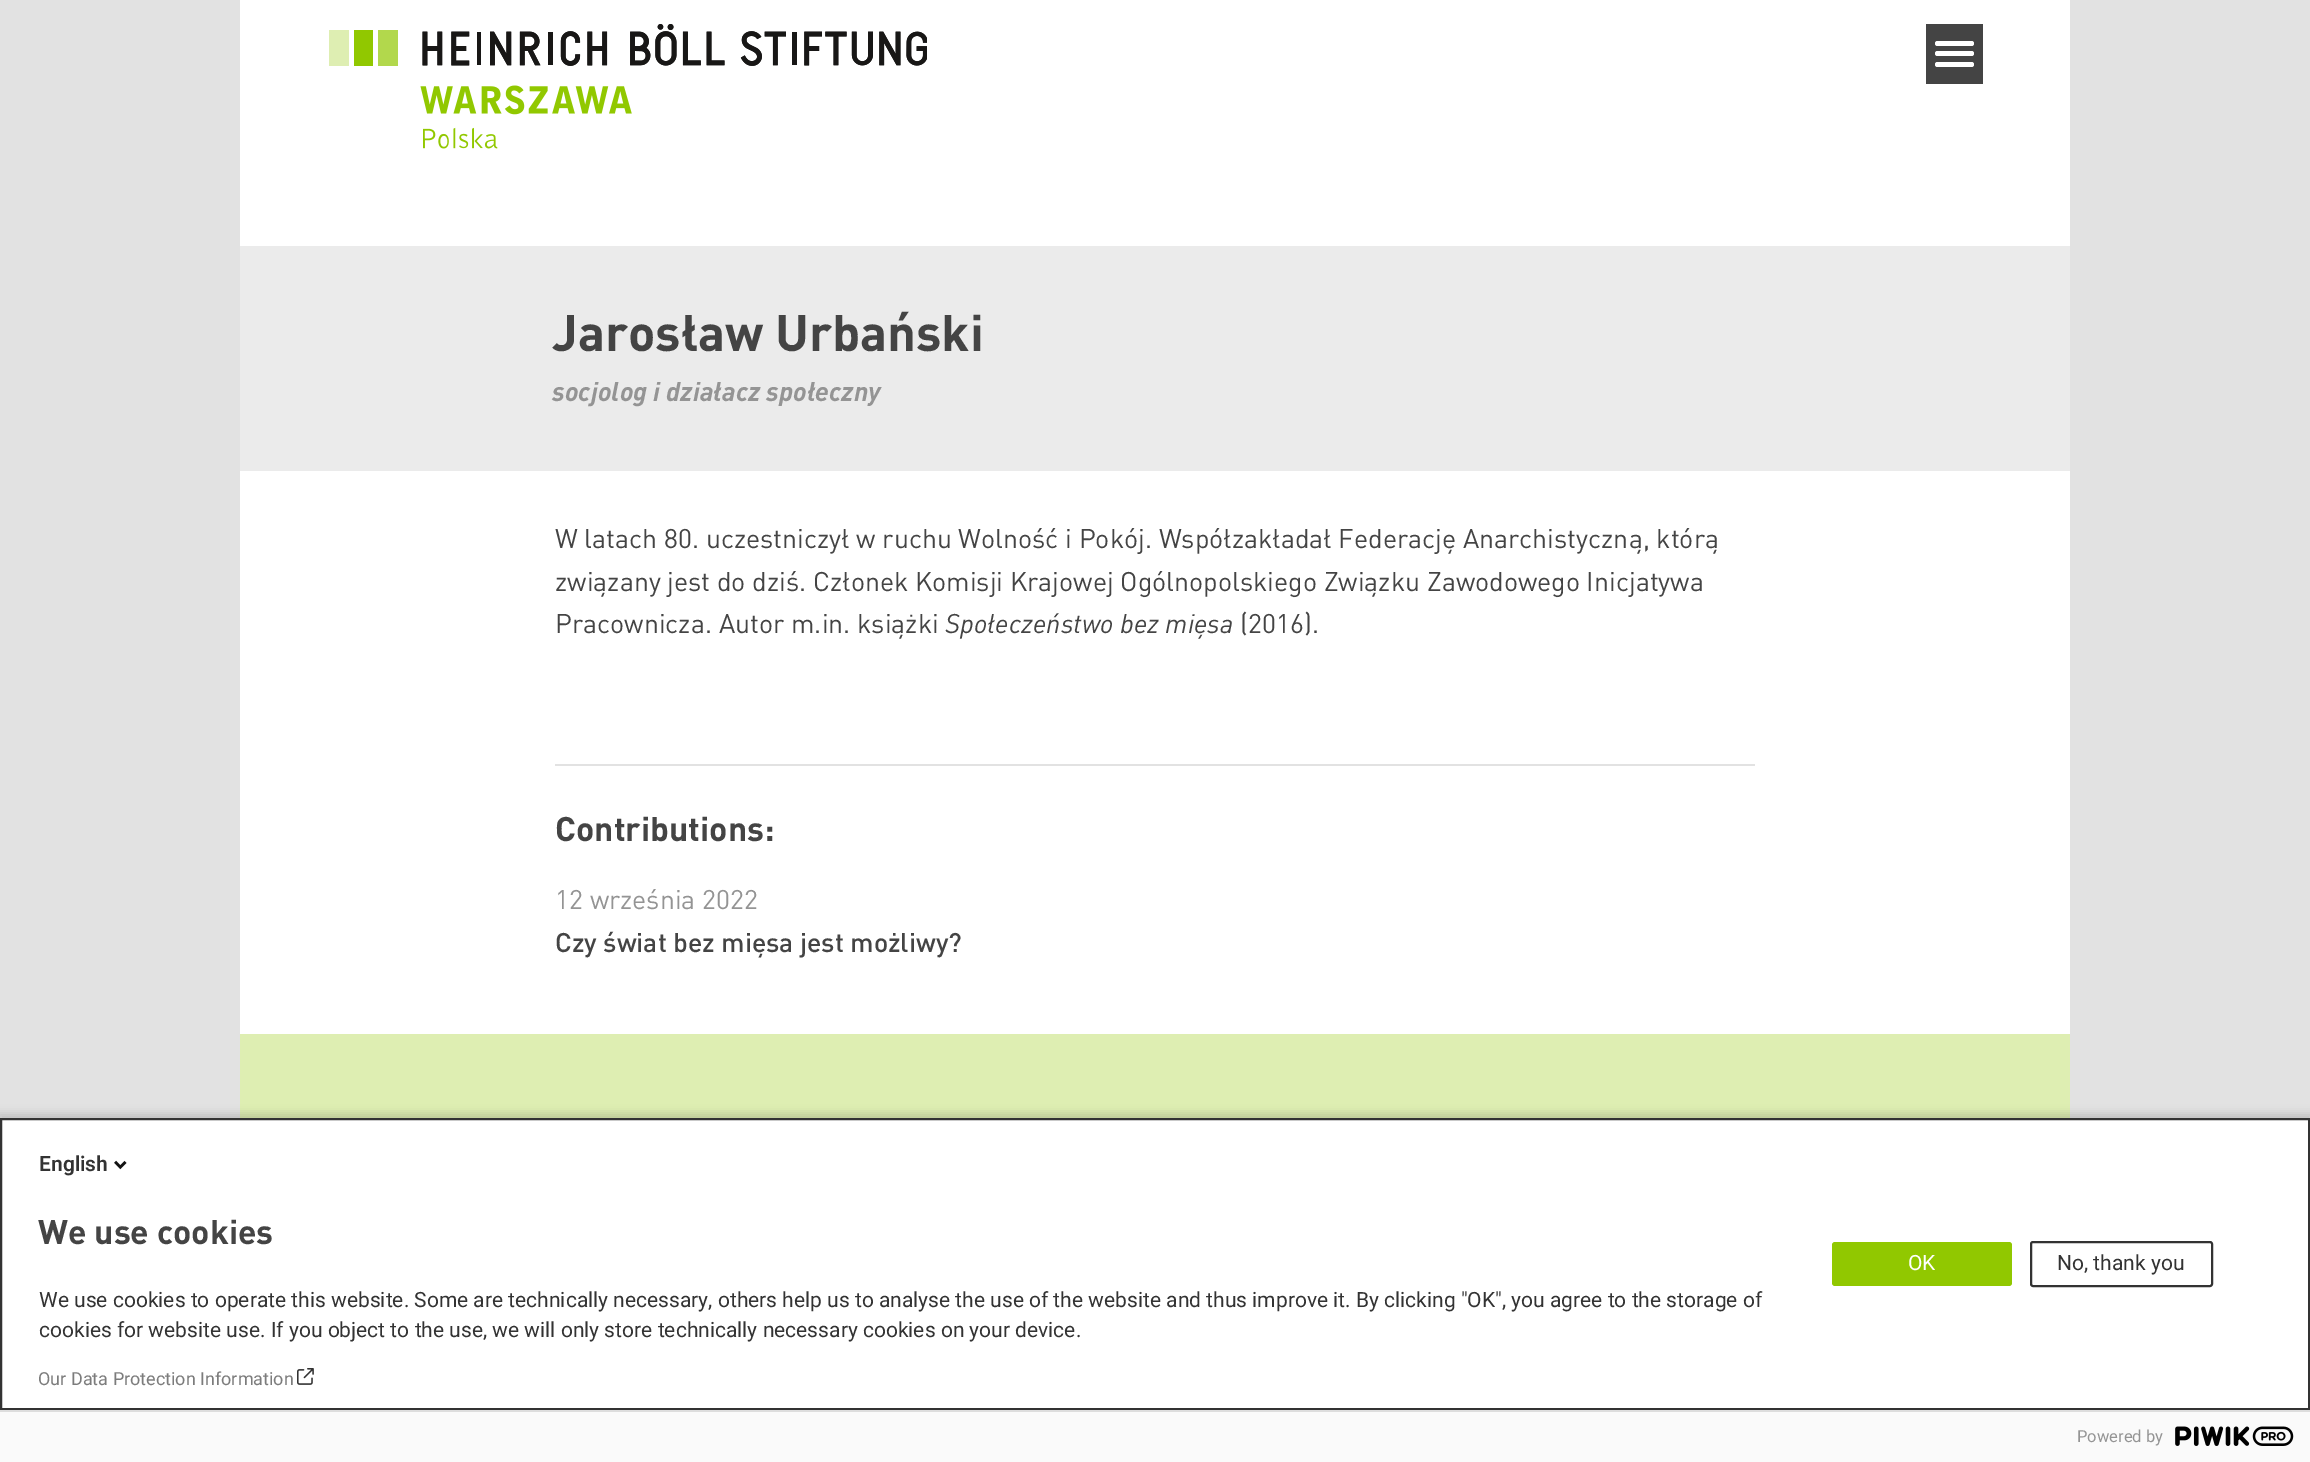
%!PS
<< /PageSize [2310 1462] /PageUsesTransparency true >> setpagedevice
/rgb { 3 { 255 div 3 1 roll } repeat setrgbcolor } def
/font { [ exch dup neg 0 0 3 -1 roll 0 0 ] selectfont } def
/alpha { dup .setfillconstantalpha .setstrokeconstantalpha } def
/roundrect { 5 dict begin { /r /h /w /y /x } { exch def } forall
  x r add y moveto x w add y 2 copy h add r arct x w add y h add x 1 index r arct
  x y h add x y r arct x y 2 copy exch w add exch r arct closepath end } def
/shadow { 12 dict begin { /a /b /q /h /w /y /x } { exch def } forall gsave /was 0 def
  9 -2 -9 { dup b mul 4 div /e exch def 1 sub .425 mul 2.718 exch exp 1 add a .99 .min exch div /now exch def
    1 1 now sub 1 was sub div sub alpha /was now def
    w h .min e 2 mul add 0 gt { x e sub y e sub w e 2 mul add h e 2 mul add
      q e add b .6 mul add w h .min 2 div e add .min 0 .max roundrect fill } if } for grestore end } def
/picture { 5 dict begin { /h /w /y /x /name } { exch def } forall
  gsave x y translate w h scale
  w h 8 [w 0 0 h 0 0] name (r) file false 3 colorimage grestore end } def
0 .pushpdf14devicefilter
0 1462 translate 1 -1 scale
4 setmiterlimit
226 226 226 rgb
0 0 2310 1462 rectfill
255 255 255 rgb
240 0 1830 1034 rectfill
(img/1.rgb) 329 24 598 91 picture
(img/2.rgb) 423 127 75 22 picture
68 68 68 rgb
1926 24 57 60 rectfill
255 255 255 rgb
1935 51 39 5 2.5 roundrect fill
1935 41 39 5 2.5 roundrect fill
1935 62 39 5 2.5 roundrect fill
[
  [240 246 1830 225 235 235 235]
  [555 764 1200 2 226 226 226]
  [240 1034 1830 84 222 238 178]
] { aload pop rgb rectfill } forall
0 0 0 rgb
-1 1113 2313 348 0 4 0.14 shadow
255 255 255 rgb
1 1119 moveto 2309 1119 lineto 2309 1409 lineto 1 1409 lineto closepath gsave fill grestore
51 51 51 rgb
2 setlinewidth
stroke
(img/3.rgb) 114 1160 13 10 picture
(img/4.rgb) 297 1368 17 17 picture
145 200 0 rgb
1832 1242 180 44 3 roundrect fill
51 51 51 rgb
2031 1242 181 44 2 roundrect stroke
250 250 250 rgb
0 1412 2310 50 rectfill
221 221 221 rgb
0 1410 2310 2 rectfill
(img/5.rgb) 2175 1426 119 20 picture
/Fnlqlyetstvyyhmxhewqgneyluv-Bold 50.6 font
68 68 68 rgb
552 351 moveto (Jarosław Urbański) show
/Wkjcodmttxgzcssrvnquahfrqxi-BoldItalic 26.7 font
148 148 148 rgb
552 401 moveto (socjolog i działacz społeczny) show
/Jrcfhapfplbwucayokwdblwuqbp-Regular 26.7 font
68 68 68 rgb
[
  [(W latach 80. uczestniczył w ruchu Wolność i Pokój. Współzakładał Federację Anarchistyczną, którą) 555 548]
  [(związany jest do dziś. Członek Komisji Krajowej Ogólnopolskiego Związku Zawodowego Inicjatywa) 555 591]
  [(Pracownicza. Autor m.in. książki) 555 633]
] { aload pop moveto show } forall
/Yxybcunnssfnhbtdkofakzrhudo-Italic 26.7 font
945 633 moveto (Społeczeństwo bez mięsa) show
/Jrcfhapfplbwucayokwdblwuqbp-Regular 26.7 font
1240 633 moveto (\(2016\).) show
/Fnlqlyetstvyyhmxhewqgneyluv-Bold 33.75 font
555 841 moveto (Contributions:) show
/Jrcfhapfplbwucayokwdblwuqbp-Regular 26.7 font
148 148 148 rgb
555 909 moveto (12 września 2022) show
/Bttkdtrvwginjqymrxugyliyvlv-Medium 26.7 font
68 68 68 rgb
555 952 moveto (Czy świat bez mięsa jest możliwy?) show
/Roboto-SemiBold 21 font
51 51 51 rgb
39 1171 moveto (English) show
/Fnlqlyetstvyyhmxhewqgneyluv-Bold 33.75 font
68 68 68 rgb
38 1244 moveto (We use cookies) show
/Roboto-Regular 21 font
51 51 51 rgb
39 1307 moveto (We use cookies to operate this website. Some are technically necessary, others help us to analyse the use of the website and thus improve it. By clicking "OK", you agree to the storage of) show
39 1337 moveto (cookies for website use. If you object to the use, we will only store technically necessary cookies on your device.) show
/Roboto-Regular 18 font
124 124 124 rgb
38 1385 moveto (Our Data Protection Information) show
/Roboto-Regular 21 font
255 255 255 rgb
1908 1270 moveto (OK) show
51 51 51 rgb
2057 1270 moveto (No, thank you) show
/Roboto-Regular 16.5 font
148 148 148 rgb
2077 1442 moveto (Powered by) show
.poppdf14devicefilter showpage
